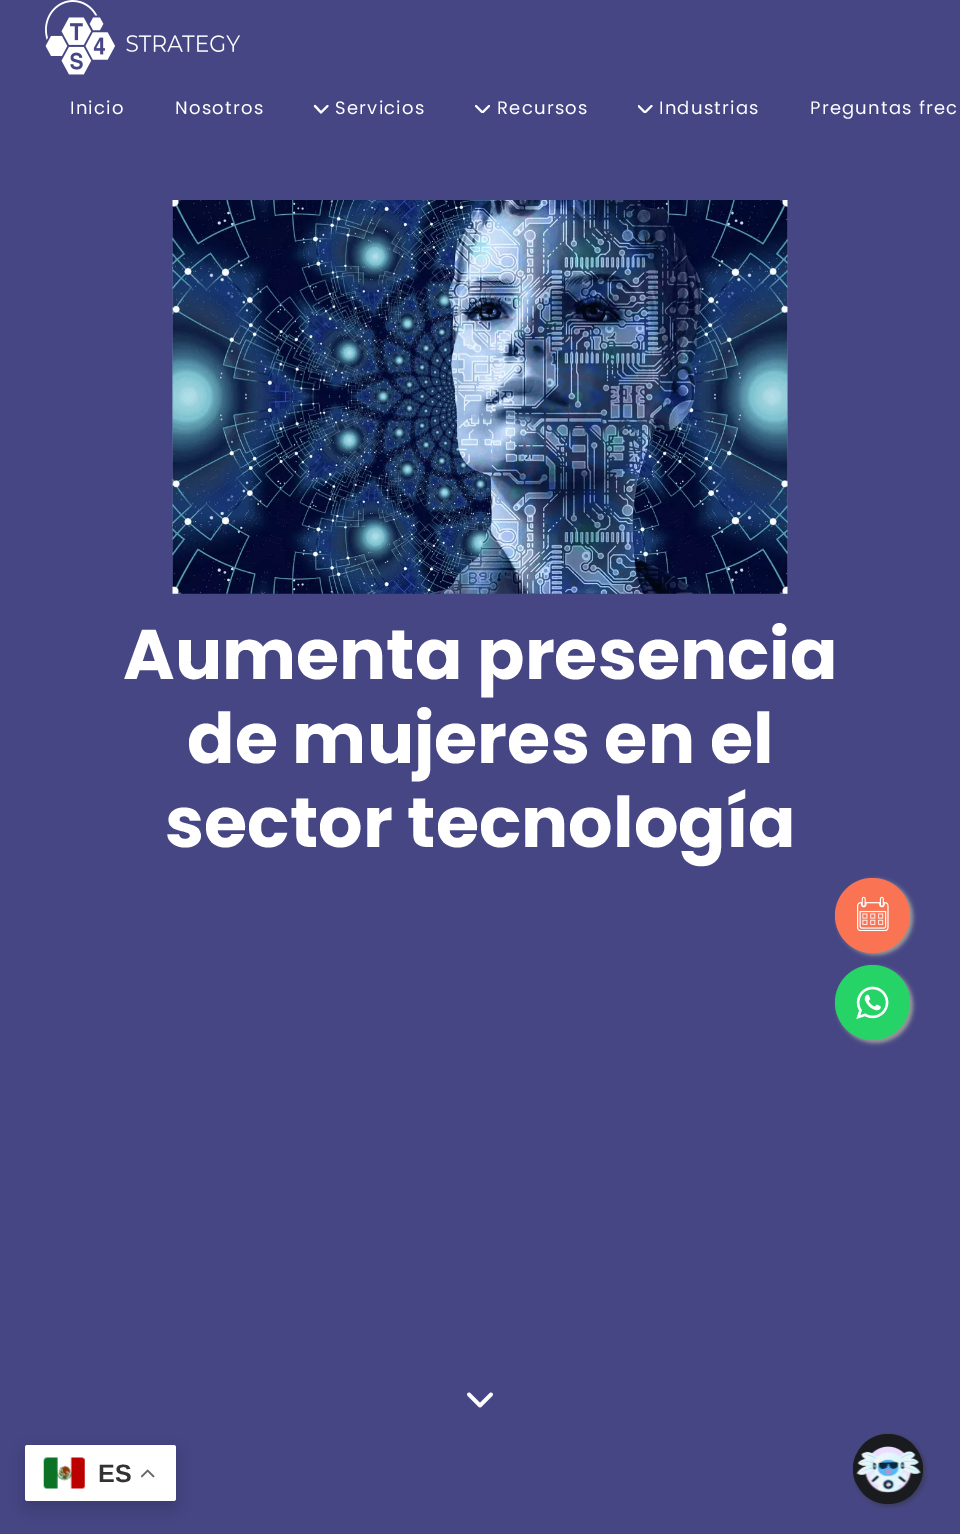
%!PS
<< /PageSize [960 1534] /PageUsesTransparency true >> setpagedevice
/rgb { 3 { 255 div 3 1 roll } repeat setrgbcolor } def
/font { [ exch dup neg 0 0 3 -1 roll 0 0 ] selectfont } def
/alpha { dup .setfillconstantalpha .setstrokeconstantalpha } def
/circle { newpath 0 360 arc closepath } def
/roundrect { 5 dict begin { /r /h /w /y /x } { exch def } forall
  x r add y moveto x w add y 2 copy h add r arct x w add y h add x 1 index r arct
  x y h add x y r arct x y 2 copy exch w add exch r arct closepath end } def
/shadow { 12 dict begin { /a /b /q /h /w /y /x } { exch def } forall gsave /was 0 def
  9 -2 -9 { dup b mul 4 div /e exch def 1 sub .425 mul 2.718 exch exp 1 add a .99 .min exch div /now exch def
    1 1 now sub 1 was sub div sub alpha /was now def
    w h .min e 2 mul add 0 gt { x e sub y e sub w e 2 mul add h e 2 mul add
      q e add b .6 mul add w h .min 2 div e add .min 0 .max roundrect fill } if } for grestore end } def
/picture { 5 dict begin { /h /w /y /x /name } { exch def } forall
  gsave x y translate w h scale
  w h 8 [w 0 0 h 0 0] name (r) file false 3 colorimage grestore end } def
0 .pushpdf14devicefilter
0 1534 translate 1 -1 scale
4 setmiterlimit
70 70 133 rgb
0 0 960 1534 rectfill
(img/1.rgb) 45 0 195 75 picture
255 255 255 rgb
2.1 setlinewidth
1 setlinecap
1 setlinejoin
315 106 moveto 321 112.5 lineto 327.5 106 lineto stroke
gsave
475 105 15 8 rectclip
476 106 moveto 482.5 112.5 lineto 489 106 lineto stroke
grestore
gsave
638 105 15 8 rectclip
638.5 106 moveto 645 112.5 lineto 651.5 106 lineto stroke
grestore
(img/2.rgb) 172 200 616 394 picture
3.8 setlinewidth
469 1394.5 moveto 480 1405.5 lineto 491 1394.5 lineto stroke
153 153 153 rgb
838 880 75 75 37.5 2 1 shadow
250 115 83 rgb
872.5 915.5 37.5 circle fill
(img/3.rgb) 857 896 32 35 picture
153 153 153 rgb
838 968 75 75 37.5 2 1 shadow
37 211 102 rgb
872.5 1002.5 37.5 circle fill
(img/4.rgb) 856 986 33 33 picture
0 0 0 rgb
25 1451 151 57 2.5 9.5 0.15 shadow
255 255 255 rgb
25 1445 151 56 2.5 roundrect fill
(img/5.rgb) 43 1457 42 32 picture
(img/6.rgb) 141 1469 14 9 picture
45 45 45 rgb
855 1436 70 70 35 3 0.5 shadow
26 27 30 rgb
888 1469 35 circle fill
(img/7.rgb) 856 1446 65 47 picture
/Poppins-Regular 18 font
255 255 255 rgb
70 114 moveto 1.25 0 (Inicio) ashow
175 114 moveto 1.25 0 (Nosotros) ashow
335 114 moveto 1.25 0 (Servicios) ashow
497 114 moveto 1.25 0 (Recursos) ashow
659 114 moveto 1.25 0 (Industrias) ashow
810 114 moveto 1.25 0 (Preguntas frec) ashow
/Poppins-Bold 70 font
[
  [(Aumenta presencia) 123 679]
  [(de mujeres en el) 187 763]
  [(sector tecnología) 165 847]
] { aload pop moveto show } forall
/LiberationSans-Bold 25 font
51 51 51 rgb
98 1482 moveto (ES) show
.poppdf14devicefilter showpage
